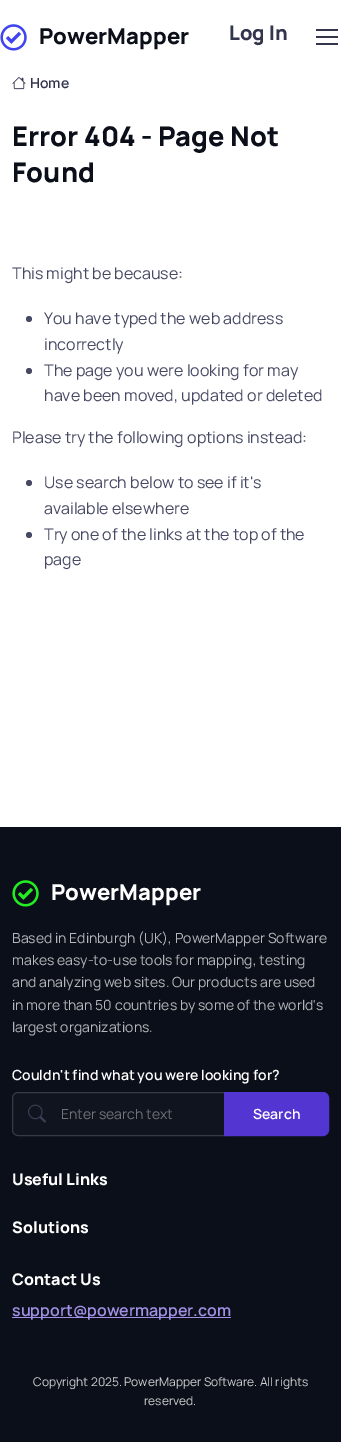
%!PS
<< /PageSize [341 1442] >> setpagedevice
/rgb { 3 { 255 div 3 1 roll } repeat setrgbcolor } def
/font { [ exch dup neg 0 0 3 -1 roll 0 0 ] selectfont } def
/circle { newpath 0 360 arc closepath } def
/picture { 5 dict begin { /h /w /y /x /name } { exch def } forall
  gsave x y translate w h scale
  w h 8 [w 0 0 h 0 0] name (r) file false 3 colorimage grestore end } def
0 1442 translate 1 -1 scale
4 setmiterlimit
255 255 255 rgb
0 0 341 1442 rectfill
(img/1.rgb) 0 24 27 27 picture
[
  [316 36 22 2 51 53 77]
  [316 29 22 2 51 53 77]
  [316 43 22 2 51 53 77]
] { aload pop rgb rectfill } forall
(img/2.rgb) 12 77 14 13 picture
70 73 99 rgb
29 319 3 circle fill
29 371 3 circle fill
29 483 3 circle fill
29 535 3 circle fill
11 15 25 rgb
0 827 341 615 rectfill
(img/3.rgb) 12 880 27 27 picture
16 20 30 rgb
18 1092.5 moveto 224.5 1092.5 lineto 224.5 1135.5 lineto 18 1135.5 lineto 15 1135.5 12.5 1133 12.5 1130 curveto 12.5 1098 lineto 12.5 1095 15 1092.5 18 1092.5 curveto closepath gsave fill grestore
55 58 66 rgb
stroke
(img/4.rgb) 28 1104 18 19 picture
83 54 209 rgb
224.5 1092.5 moveto 323 1092.5 lineto 326 1092.5 328.5 1095 328.5 1098 curveto 328.5 1130 lineto 328.5 1133 326 1135.5 323 1135.5 curveto 224.5 1135.5 lineto closepath gsave fill grestore
stroke
161 145 230 rgb
12 1317 219 1 rectfill
/Manrope-ExtraBold 22 font
11 15 25 rgb
39 44 moveto (PowerMapper) show
/Manrope-ExtraBold 20 font
51 53 77 rgb
229 40 moveto (Log In) show
/Manrope-SemiBold 14 font
30 88 moveto (Home) show
/Manrope-ExtraBold 27.1 font
11 15 25 rgb
12 146 moveto (Error 404 - Page Not) show
12 182 moveto (Found) show
/Manrope-Regular 16 font
70 73 99 rgb
[
  [(This might be because:) 12 279]
  [(You have typed the web address) 44 324]
  [(incorrectly) 44 350]
  [(The page you were looking for may) 44 376]
  [(have been moved, updated or deleted) 44 401]
  [(Please try the following options instead:) 12 443]
  [(Use search below to see if it's) 44 488]
  [(available elsewhere) 44 514]
  [(Try one of the links at the top of the) 44 540]
  [(page) 44 565]
] { aload pop moveto show } forall
/Manrope-ExtraBold 22 font
255 255 255 rgb
51 900 moveto (PowerMapper) show
/Manrope-Regular 14 font
182 183 186 rgb
[
  [(Based in Edinburgh \(UK\), PowerMapper Software) 12 943]
  [(makes easy-to-use tools for mapping, testing) 12 965]
  [(and analyzing web sites. Our products are used) 12 987]
  [(in more than 50 countries by some of the world's) 12 1010]
  [(largest organizations.) 12 1032]
] { aload pop moveto show } forall
/Manrope-SemiBold 14 font
255 255 255 rgb
12 1080 moveto (Couldn't find what you were looking for?) show
/Manrope-Regular 14 font
112 114 120 rgb
61 1119 moveto (Enter search text) show
/Manrope-SemiBold 14 font
255 255 255 rgb
253 1119 moveto (Search) show
/Manrope-ExtraBold 16 font
[
  [(Useful Links) 12 1185]
  [(Solutions) 12 1233]
  [(Contact Us) 12 1285]
] { aload pop moveto show } forall
/Manrope-SemiBold 16 font
161 145 230 rgb
12 1316 moveto (support@powermapper.com) show
/Manrope-Regular 12 font
206 207 209 rgb
33 1386 moveto (Copyright 2025. PowerMapper Software. All rights) show
144 1405 moveto (reserved.) show
showpage
